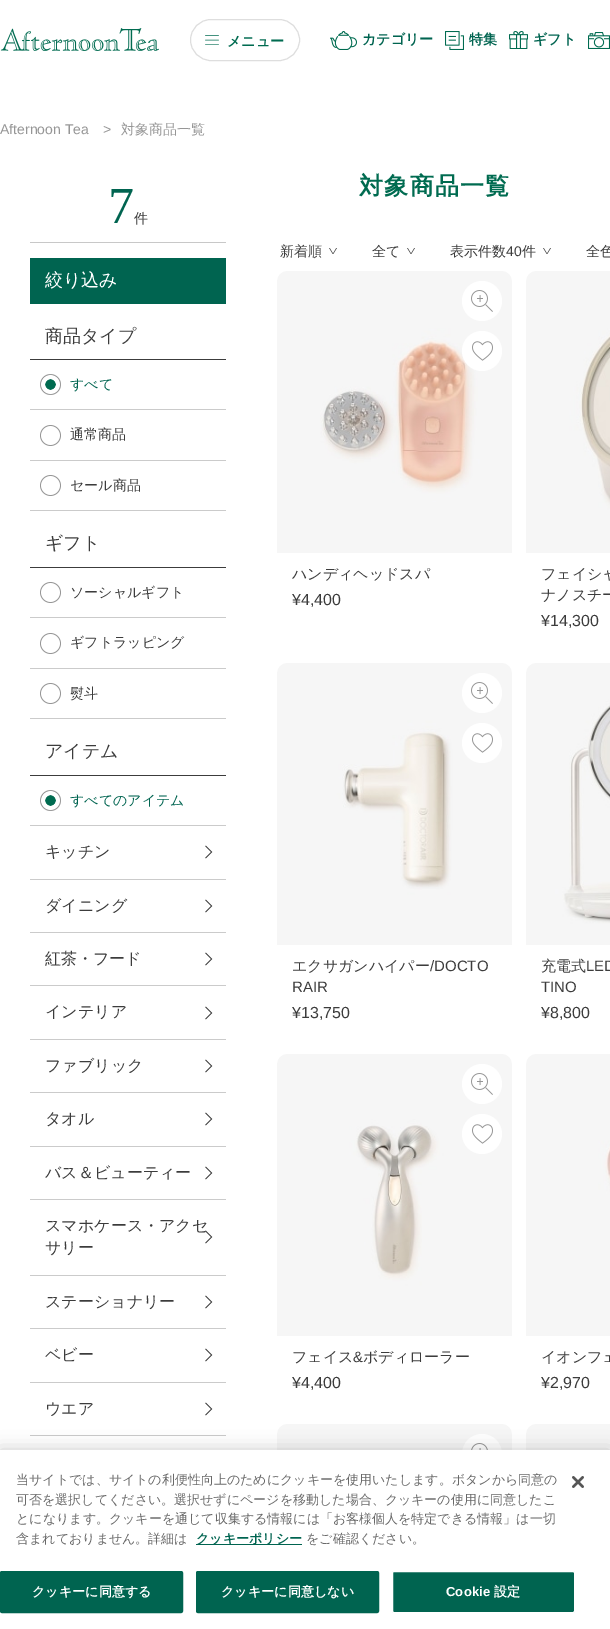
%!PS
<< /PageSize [610 1629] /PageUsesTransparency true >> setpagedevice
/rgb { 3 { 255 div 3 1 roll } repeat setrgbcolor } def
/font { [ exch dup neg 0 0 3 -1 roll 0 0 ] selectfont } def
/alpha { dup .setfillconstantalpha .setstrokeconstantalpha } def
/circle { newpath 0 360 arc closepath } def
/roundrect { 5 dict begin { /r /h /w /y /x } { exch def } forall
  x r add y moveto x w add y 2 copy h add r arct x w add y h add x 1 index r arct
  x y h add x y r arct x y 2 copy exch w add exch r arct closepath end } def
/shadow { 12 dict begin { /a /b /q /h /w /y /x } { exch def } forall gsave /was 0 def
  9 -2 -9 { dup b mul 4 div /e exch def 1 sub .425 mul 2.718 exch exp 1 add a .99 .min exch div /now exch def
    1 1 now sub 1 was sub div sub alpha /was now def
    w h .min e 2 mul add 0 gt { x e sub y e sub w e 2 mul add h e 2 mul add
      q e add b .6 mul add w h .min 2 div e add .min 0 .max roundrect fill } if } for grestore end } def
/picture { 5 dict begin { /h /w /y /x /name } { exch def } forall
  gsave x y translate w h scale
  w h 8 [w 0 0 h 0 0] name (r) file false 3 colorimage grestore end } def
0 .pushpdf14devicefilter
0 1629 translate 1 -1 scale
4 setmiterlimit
255 255 255 rgb
0 0 610 1629 rectfill
(img/1.rgb) 0 28 159 23 picture
(img/2.rgb) 205 35 14 10 picture
222 222 222 rgb
190.5 19.5 109 41 20.5 roundrect stroke
(img/3.rgb) 330 31 27 19 picture
(img/4.rgb) 445 31 19 19 picture
(img/5.rgb) 509 31 19 18 picture
(img/6.rgb) 588 32 22 17 picture
[
  [30 242 196 1 200 200 200]
  [30 258 196 46 0 100 80]
  [30 359 196 1 60 60 60]
  [30 409 196 1 203 203 203]
] { aload pop rgb rectfill } forall
(img/7.rgb) 40 374 21 21 picture
30 460 196 1 rectfill
(img/8.rgb) 40 425 21 21 picture
30 510 196 1 rectfill
(img/8.rgb) 40 475 21 21 picture
60 60 60 rgb
30 567 196 1 rectfill
203 203 203 rgb
30 617 196 1 rectfill
(img/8.rgb) 40 582 21 21 picture
30 668 196 1 rectfill
(img/8.rgb) 40 633 21 21 picture
30 718 196 1 rectfill
(img/8.rgb) 40 683 21 21 picture
60 60 60 rgb
30 775 196 1 rectfill
(img/7.rgb) 40 790 21 21 picture
203 203 203 rgb
30 825 196 1 rectfill
(img/9.rgb) 205 845 8 14 picture
30 879 196 1 rectfill
(img/9.rgb) 205 899 8 14 picture
30 932 196 1 rectfill
(img/9.rgb) 205 952 8 14 picture
30 985 196 1 rectfill
(img/9.rgb) 205 1006 8 14 picture
30 1039 196 1 rectfill
(img/9.rgb) 205 1059 8 14 picture
30 1092 196 1 rectfill
(img/9.rgb) 205 1112 8 14 picture
30 1146 196 1 rectfill
(img/9.rgb) 205 1166 8 14 picture
30 1199 196 1 rectfill
(img/9.rgb) 205 1230 8 14 picture
30 1275 196 1 rectfill
(img/9.rgb) 205 1295 8 14 picture
30 1328 196 1 rectfill
(img/9.rgb) 205 1348 8 14 picture
30 1382 196 1 rectfill
(img/9.rgb) 205 1402 8 14 picture
30 1435 196 1 rectfill
(img/10.rgb) 329 248 8 6 picture
(img/10.rgb) 407 248 8 6 picture
(img/10.rgb) 543 248 8 6 picture
(img/11.rgb) 277 271 235 282 picture
255 255 255 rgb
482 301 20 circle fill
(img/12.rgb) 471 290 22 22 picture
482 351 20 circle fill
(img/13.rgb) 472 341 21 20 picture
(img/14.rgb) 526 271 84 282 picture
(img/15.rgb) 277 663 235 282 picture
482 693 20 circle fill
(img/12.rgb) 471 682 22 22 picture
482 743 20 circle fill
(img/13.rgb) 472 733 21 20 picture
(img/16.rgb) 526 663 84 282 picture
(img/17.rgb) 277 1054 235 282 picture
482 1084 20 circle fill
(img/12.rgb) 471 1073 22 22 picture
482 1134 20 circle fill
(img/13.rgb) 472 1124 21 20 picture
(img/18.rgb) 526 1054 84 282 picture
(img/19.rgb) 277 1424 235 26 picture
482 1454 20 circle fill
(img/20.rgb) 471 1443 17 7 picture
(img/21.rgb) 526 1424 84 26 picture
0 0 0 rgb
0 1450 610 179 0 9 0.2 shadow
255 255 255 rgb
0 1450 610 179 rectfill
0 100 80 rgb
196 1544 106 1 rectfill
0.5 1571.5 182 41 1.5 roundrect gsave fill grestore
stroke
196.5 1571.5 182 41 1.5 roundrect gsave fill grestore
stroke
392.5 1571.5 182 41 1.5 roundrect gsave fill grestore
255 255 255 rgb
stroke
(img/22.rgb) 572 1476 12 12 picture
/WenQuanYiZenHei-Bold 14 font
0 107 80 rgb
227 46 moveto (メニュー) show
0 100 80 rgb
[
  [(カテゴリー) 362 44]
  [(特集) 469 44]
  [(ギフト) 533 44]
] { aload pop moveto show } forall
/LiberationSans-Regular 14 font
150 150 150 rgb
0 134 moveto (Afternoon Tea) show
103 134 moveto (>) show
/WenQuanYiZenHei-Medium 14 font
121 134 moveto (対象商品一覧) show
/LiberationSerif-Regular 52 font
0 100 80 rgb
108 223 moveto (7) show
/WenQuanYiZenHei-Medium 14 font
60 60 60 rgb
134 223 moveto (件) show
/WenQuanYiZenHei-Medium 18 font
255 255 255 rgb
45 286 moveto (絞り込み) show
60 60 60 rgb
45 342 moveto (商品タイプ) show
/WenQuanYiZenHei-Medium 14 font
0 100 80 rgb
70 389 moveto (すべて) show
60 60 60 rgb
70 439 moveto (通常商品) show
70 490 moveto (セール商品) show
/WenQuanYiZenHei-Medium 18 font
45 549 moveto (ギフト) show
/WenQuanYiZenHei-Medium 14 font
[
  [(ソーシャルギフト) 70 597]
  [(ギフトラッピング) 70 647]
  [(熨斗) 70 698]
] { aload pop moveto show } forall
/WenQuanYiZenHei-Medium 18 font
45 757 moveto (アイテム) show
/WenQuanYiZenHei-Medium 14 font
0 100 80 rgb
70 805 moveto (すべてのアイテム) show
/WenQuanYiZenHei-Medium 16 font
60 60 60 rgb
[
  [(キッチン) 45 857]
  [(ダイニング) 45 911]
  [(紅茶・フード) 45 964]
  [(インテリア) 45 1017]
  [(ファブリック) 45 1071]
  [(タオル) 45 1124]
  [(バス＆ビューティー) 45 1178]
  [(スマホケース・アクセ) 45 1231]
  [(サリー) 45 1253]
  [(ステーショナリー) 45 1307]
  [(ベビー) 45 1360]
  [(ウエア) 45 1414]
] { aload pop moveto show } forall
/WenQuanYiZenHei-Bold 24 font
0 107 80 rgb
359 194 moveto 1.25 0 (対象商品一覧) ashow
/WenQuanYiZenHei-Medium 14 font
60 60 60 rgb
[
  [(新着順) 280 256]
  [(全て) 372 256]
  [(表示件数) 450 256]
] { aload pop moveto show } forall
/LiberationSans-Regular 14 font
506 256 moveto (40) show
/WenQuanYiZenHei-Medium 14 font
522 256 moveto (件) show
586 256 moveto (全色) show
/WenQuanYiZenHei-Medium 15 font
292 579 moveto (ハンディヘッドスパ) show
/LiberationSans-Regular 16 font
292 605 moveto (¥4,400) show
/WenQuanYiZenHei-Medium 15 font
541 579 moveto (フェイシャ) show
541 600 moveto (ナノスチー) show
/LiberationSans-Regular 16 font
541 626 moveto (¥14,300) show
/WenQuanYiZenHei-Medium 15 font
292 971 moveto (エクサガンハイパー) show
/LiberationSans-Regular 15 font
430 971 moveto (/DOCTO) show
292 992 moveto (RAIR) show
/LiberationSans-Regular 16 font
292 1018 moveto (¥13,750) show
/WenQuanYiZenHei-Medium 15 font
541 971 moveto (充電式) show
/LiberationSans-Regular 15 font
586 971 moveto (LED) show
541 992 moveto (TINO) show
/LiberationSans-Regular 16 font
541 1018 moveto (¥8,800) show
/WenQuanYiZenHei-Medium 15 font
292 1362 moveto (フェイス) show
/LiberationSans-Regular 15 font
353 1362 moveto (&) show
/WenQuanYiZenHei-Medium 15 font
363 1362 moveto (ボディローラー) show
/LiberationSans-Regular 16 font
292 1388 moveto (¥4,400) show
/WenQuanYiZenHei-Medium 15 font
541 1362 moveto (イオンフェ) show
/LiberationSans-Regular 16 font
541 1388 moveto (¥2,970) show
/WenQuanYiZenHei-Medium 13 font
105 105 105 rgb
[
  [(当サイトでは、サイトの利便性向上のためにクッキーを使用いたします。ボタンから同意の) 16 1484]
  [(可否を選択してください。選択せずにページを移動した場合、クッキーの使用に同意したこ) 16 1504]
  [(とになります。クッキーを通じて収集する情報には「お客様個人を特定できる情報」は一切) 16 1523]
  [(含まれておりません。詳細は) 16 1543]
] { aload pop moveto show } forall
/WenQuanYiZenHei-Bold 13 font
0 100 80 rgb
196 1543 moveto (クッキーポリシー) show
/WenQuanYiZenHei-Medium 13 font
105 105 105 rgb
306 1543 moveto (をご確認ください。) show
/WenQuanYiZenHei-Bold 13 font
255 255 255 rgb
32 1596 moveto 0.1 0 (クッキーに同意する) ashow
221 1596 moveto 0.1 0 (クッキーに同意しない) ashow
/LiberationSans-Bold 13 font
446 1596 moveto 0.1 0 (Cookie) ashow
/WenQuanYiZenHei-Bold 13 font
494 1596 moveto 0.1 0 (設定) ashow
.poppdf14devicefilter showpage
